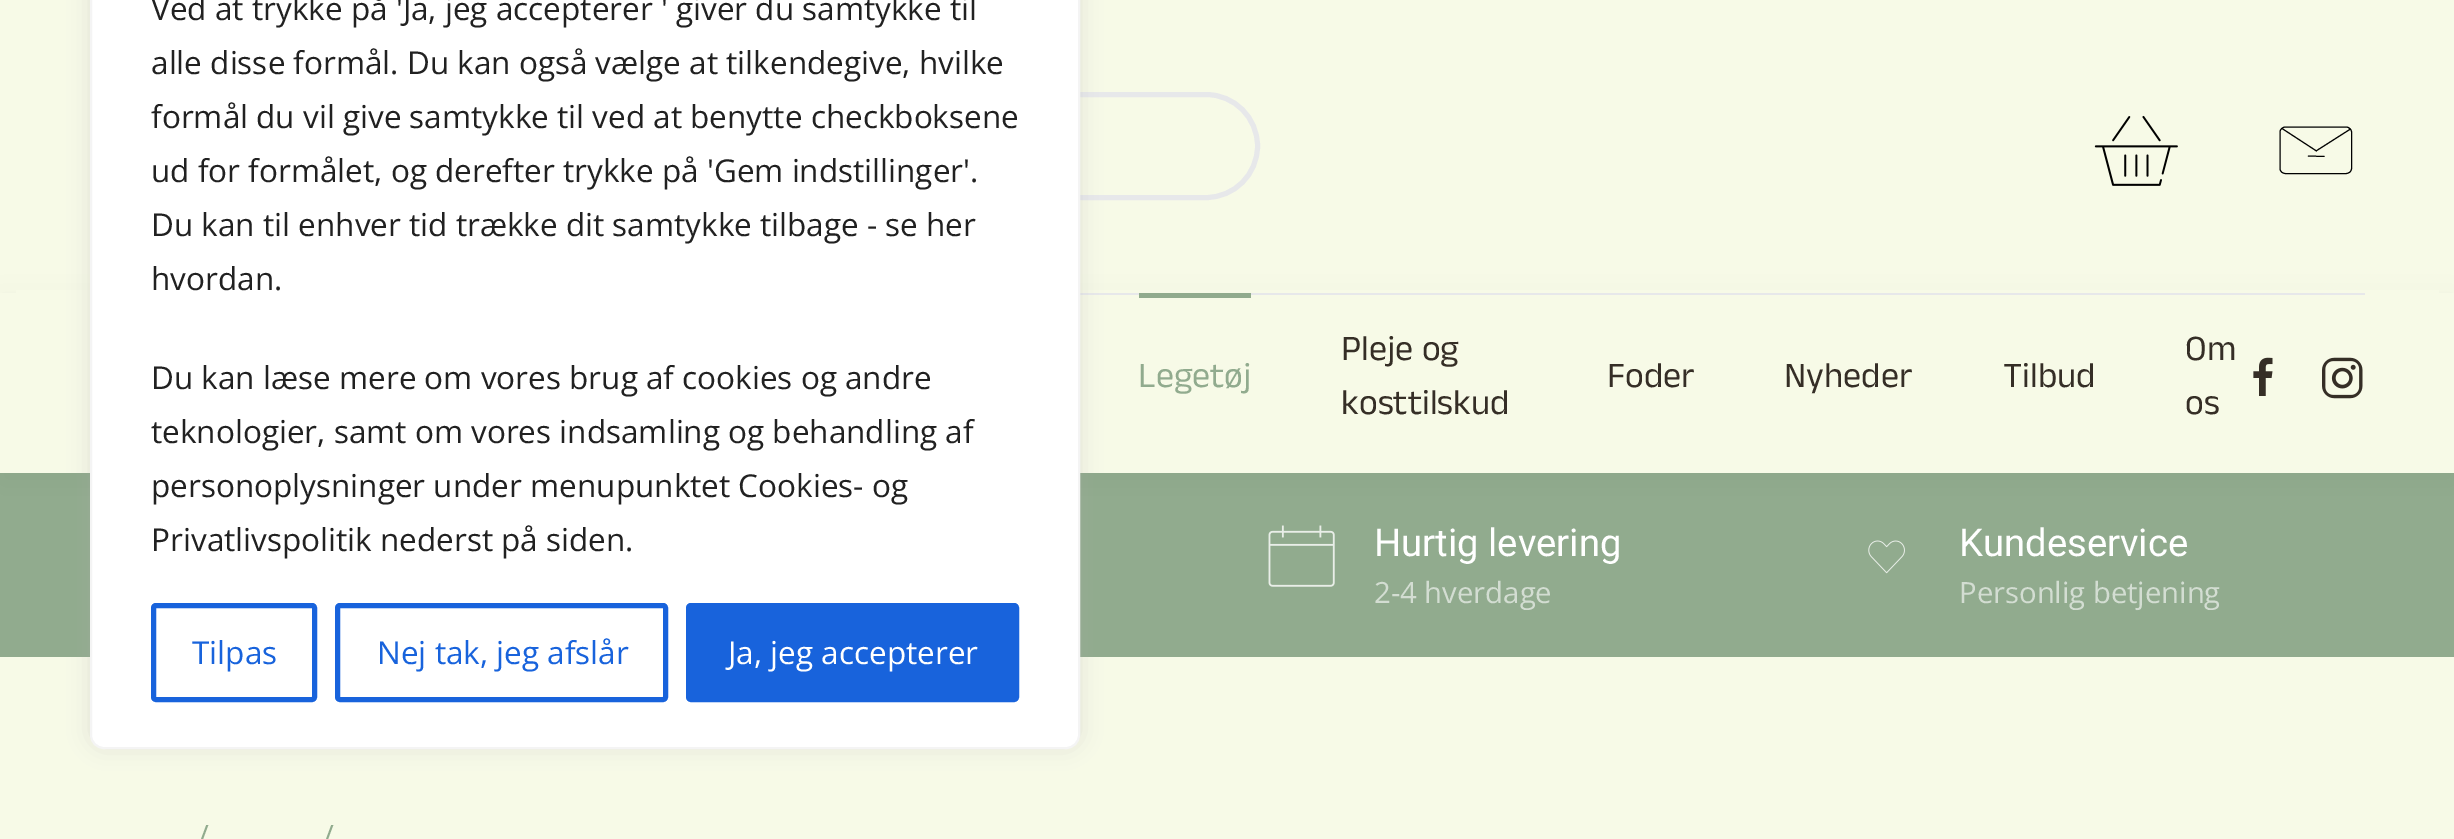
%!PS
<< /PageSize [2454 839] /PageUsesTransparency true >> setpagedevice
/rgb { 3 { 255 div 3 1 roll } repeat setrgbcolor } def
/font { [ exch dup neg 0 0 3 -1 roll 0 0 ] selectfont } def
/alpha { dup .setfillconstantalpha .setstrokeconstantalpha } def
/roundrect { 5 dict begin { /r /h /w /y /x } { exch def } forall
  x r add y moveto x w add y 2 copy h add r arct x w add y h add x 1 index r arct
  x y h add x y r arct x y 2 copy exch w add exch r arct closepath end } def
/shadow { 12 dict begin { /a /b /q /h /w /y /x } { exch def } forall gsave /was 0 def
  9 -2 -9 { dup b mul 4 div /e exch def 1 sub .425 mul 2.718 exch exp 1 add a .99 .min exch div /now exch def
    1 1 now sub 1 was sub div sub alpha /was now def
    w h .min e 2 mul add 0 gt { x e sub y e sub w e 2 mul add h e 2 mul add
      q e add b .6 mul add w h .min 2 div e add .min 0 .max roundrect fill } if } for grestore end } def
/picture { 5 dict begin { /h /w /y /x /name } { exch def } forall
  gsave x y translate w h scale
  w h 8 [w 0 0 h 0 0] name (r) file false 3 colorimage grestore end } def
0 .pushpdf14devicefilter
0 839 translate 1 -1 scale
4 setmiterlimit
247 250 231 rgb
0 0 2454 839 rectfill
145 171 142 rgb
0 473 2454 184 rectfill
(img/4.rgb) 1268 525 67 62 picture
39 44 63 rgb
0 304 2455 180 0 17 0.06 shadow
247 250 231 rgb
16 290 2423 3 rectfill
231 232 234 rgb
5 setlinewidth
722.5 94.5 535 103 51.5 roundrect stroke
247 250 231 rgb
0 293 2454 180 rectfill
231 232 234 rgb
1080 293 1285 2 rectfill
172 171 171 rgb
90 -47 990 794 14 11 0.3 shadow
255 255 255 rgb
91 -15 988 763 13 roundrect gsave fill grestore
244 244 244 rgb
2 setlinewidth
stroke
24 99 220 rgb
5 setlinewidth
153.5 605.5 161 94 2.5 roundrect stroke
337.5 605.5 328 94 2.5 roundrect stroke
688.5 605.5 328 94 2.5 roundrect gsave fill grestore
stroke
(img/1.rgb) 2094 115 84 71 picture
0 0 0 rgb
1 setlinewidth
2346 173.5 moveto 2285.5 173.5 lineto 2282.5 173.5 2280 171.5 2280 168.5 curveto 2280 132 lineto 2280 129.5 2282.5 127 2285.5 127 curveto 2346 127 lineto 2349 127 2351.5 129.5 2351.5 132 curveto 2351.5 168.5 lineto 2351.5 171.5 2349 173.5 2346 173.5 curveto closepath stroke
1 setlinejoin
2282 128.5 moveto 2316.5 151 lineto stroke
0 setlinejoin
2316 151 moveto 2350.5 129 lineto stroke
1 setlinejoin
2308 156 moveto 2324.5 156.5 lineto stroke
145 171 142 rgb
1139 293 112 5 rectfill
(img/2.rgb) 2253 357 20 39 picture
(img/3.rgb) 2322 357 41 42 picture
(img/5.rgb) 1868 540 37 34 picture
/OpenSans-Regular 31.5 font
33 33 33 rgb
[
  [(Ved at trykke på 'Ja, jeg accepterer ' giver du samtykke til) 151 20]
  [(alle disse formål. Du kan også vælge at tilkendegive, hvilke) 151 74]
  [(formål du vil give samtykke til ved at benytte checkboksene) 151 128]
  [(ud for formålet, og derefter trykke på 'Gem indstillinger'.) 151 182]
  [(Du kan til enhver tid trække dit samtykke tilbage - se her) 151 236]
  [(hvordan.) 151 290]
  [(Du kan læse mere om vores brug af cookies og andre) 151 389]
  [(teknologier, samt om vores indsamling og behandling af) 151 443]
  [(personoplysninger under menupunktet Cookies- og) 151 497]
  [(Privatlivspolitik nederst på siden.) 151 551]
] { aload pop moveto show } forall
24 99 220 rgb
192 664 moveto (Tilpas) show
377 664 moveto (Nej tak, jeg afslår) show
255 255 255 rgb
728 664 moveto (Ja, jeg accepterer) show
/AnekTelugu-Medium 36 font
145 171 142 rgb
1138 387 moveto (Legetøj) show
53 46 38 rgb
[
  [(Pleje og) 1341 360]
  [(kosttilskud) 1341 414]
  [(Foder) 1607 387]
  [(Nyheder) 1784 387]
  [(Tilbud) 2003 387]
  [(Om) 2185 360]
  [(os) 2185 414]
] { aload pop moveto show } forall
/Roboto-Regular 38.25 font
255 255 255 rgb
1374 556 moveto (Hurtig levering) show
/OpenSans-Regular 29.25 font
211 221 210 rgb
1374 603 moveto (2-4 hverdage) show
/Roboto-Regular 38.25 font
255 255 255 rgb
1959 556 moveto (Kundeservice) show
/OpenSans-Regular 29.25 font
211 221 210 rgb
1959 603 moveto (Personlig betjening) show
145 171 142 rgb
198 846 moveto (/) show
323 846 moveto (/) show
.poppdf14devicefilter showpage
